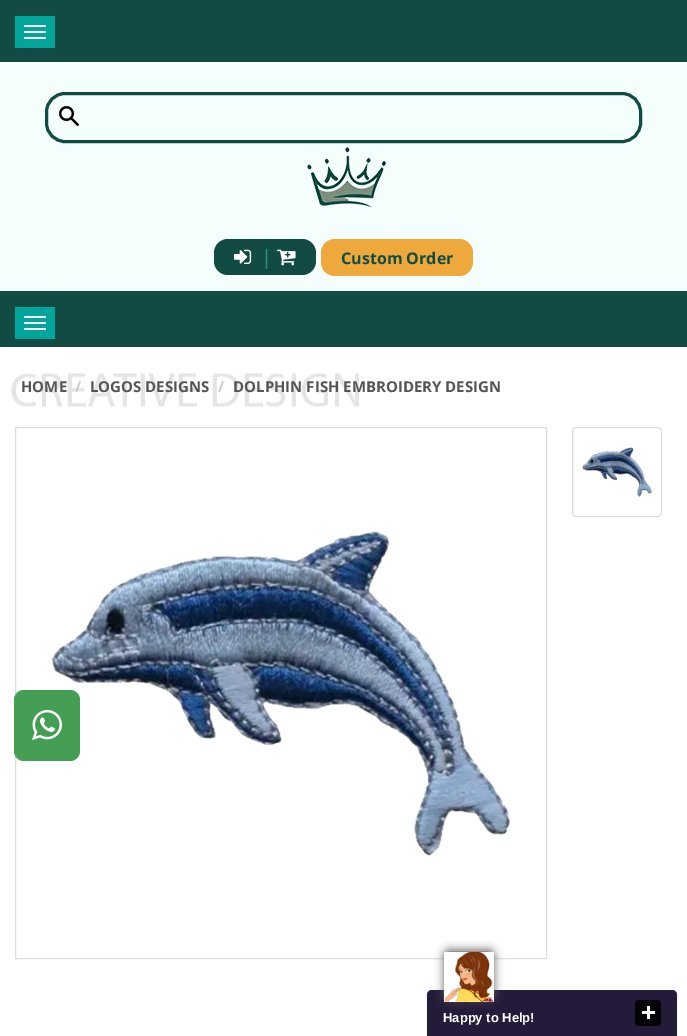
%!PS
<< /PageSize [687 1036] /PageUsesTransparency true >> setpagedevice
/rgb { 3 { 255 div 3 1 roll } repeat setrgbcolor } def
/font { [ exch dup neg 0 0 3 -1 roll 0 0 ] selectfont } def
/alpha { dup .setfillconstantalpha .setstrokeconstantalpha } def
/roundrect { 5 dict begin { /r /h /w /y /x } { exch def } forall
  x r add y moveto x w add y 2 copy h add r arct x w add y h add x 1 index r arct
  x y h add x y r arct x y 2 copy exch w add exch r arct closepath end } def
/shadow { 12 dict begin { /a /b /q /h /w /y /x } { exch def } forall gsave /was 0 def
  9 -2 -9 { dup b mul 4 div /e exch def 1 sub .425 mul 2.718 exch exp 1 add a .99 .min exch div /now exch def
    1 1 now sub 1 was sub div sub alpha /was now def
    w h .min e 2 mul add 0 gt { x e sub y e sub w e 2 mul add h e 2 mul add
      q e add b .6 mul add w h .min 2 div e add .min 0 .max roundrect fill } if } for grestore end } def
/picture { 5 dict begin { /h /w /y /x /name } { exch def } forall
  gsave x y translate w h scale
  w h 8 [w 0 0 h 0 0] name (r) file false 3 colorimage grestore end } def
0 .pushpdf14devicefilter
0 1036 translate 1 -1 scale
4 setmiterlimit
18 75 67 rgb
0 0 687 1036 rectfill
0 166 156 rgb
15 16 40 32 rectfill
255 255 255 rgb
24 25 22 2 1 roundrect fill
24 31 22 2 1 roundrect fill
24 37 22 2 1 roundrect fill
244 255 253 rgb
0 62 687 229 rectfill
(img/1.rgb) 59 106 20 20 picture
18 75 67 rgb
3 setlinewidth
46.5 93.5 594 48 18.5 roundrect stroke
(img/2.rgb) 307 147 79 60 picture
214 239 102 36 14 roundrect fill
(img/3.rgb) 234 249 18 15 picture
(img/4.rgb) 277 249 19 17 picture
238 168 59 rgb
321 239 152 37 14 roundrect fill
0 166 156 rgb
15 307 40 32 rectfill
255 255 255 rgb
24 316 22 2 1 roundrect fill
24 322 22 2 1 roundrect fill
24 328 22 2 1 roundrect fill
0 347 687 689 rectfill
(img/5.rgb) 11 373 348 34 picture
221 221 221 rgb
1 setlinewidth
15.5 427.5 531 531 rectstroke
(img/6.rgb) 51 531 460 326 picture
572.5 427.5 89 89 3.5 roundrect stroke
(img/7.rgb) 582 447 70 50 picture
68 158 83 rgb
14 690 66 71 10 roundrect fill
(img/8.rgb) 32 709 30 31 picture
36 27 59 rgb
432 990 moveto 672 990 lineto 675 990 677 992 677 995 curveto 677 1036 lineto 427 1036 lineto 427 995 lineto 427 992 429 990 432 990 curveto closepath fill
95 95 94 rgb
444 950 50 50 5 4.5 1 shadow
(img/9.rgb) 444 952 50 50 picture
4 3 7 rgb
635 1000 26 26 3 roundrect fill
(img/10.rgb) 642 1006 13 13 picture
/OpenSans-Regular 20 font
45 143 129 rgb
261 264 moveto (|) show
/OpenSans-Bold 16 font
18 75 67 rgb
341 264 moveto (Custom Order) show
/OpenSans-Bold 15 font
85 85 85 rgb
21 392 moveto (HOME) show
204 204 204 rgb
75 392 moveto (/) show
85 85 85 rgb
90 392 moveto (LOGOS DESIGNS) show
204 204 204 rgb
218 392 moveto (/) show
85 85 85 rgb
233 392 moveto (DOLPHIN FISH EMBROIDERY DESIGN) show
/LiberationSans-Bold 13 font
255 255 255 rgb
443 1022 moveto (Happy to Help!) show
.poppdf14devicefilter showpage
